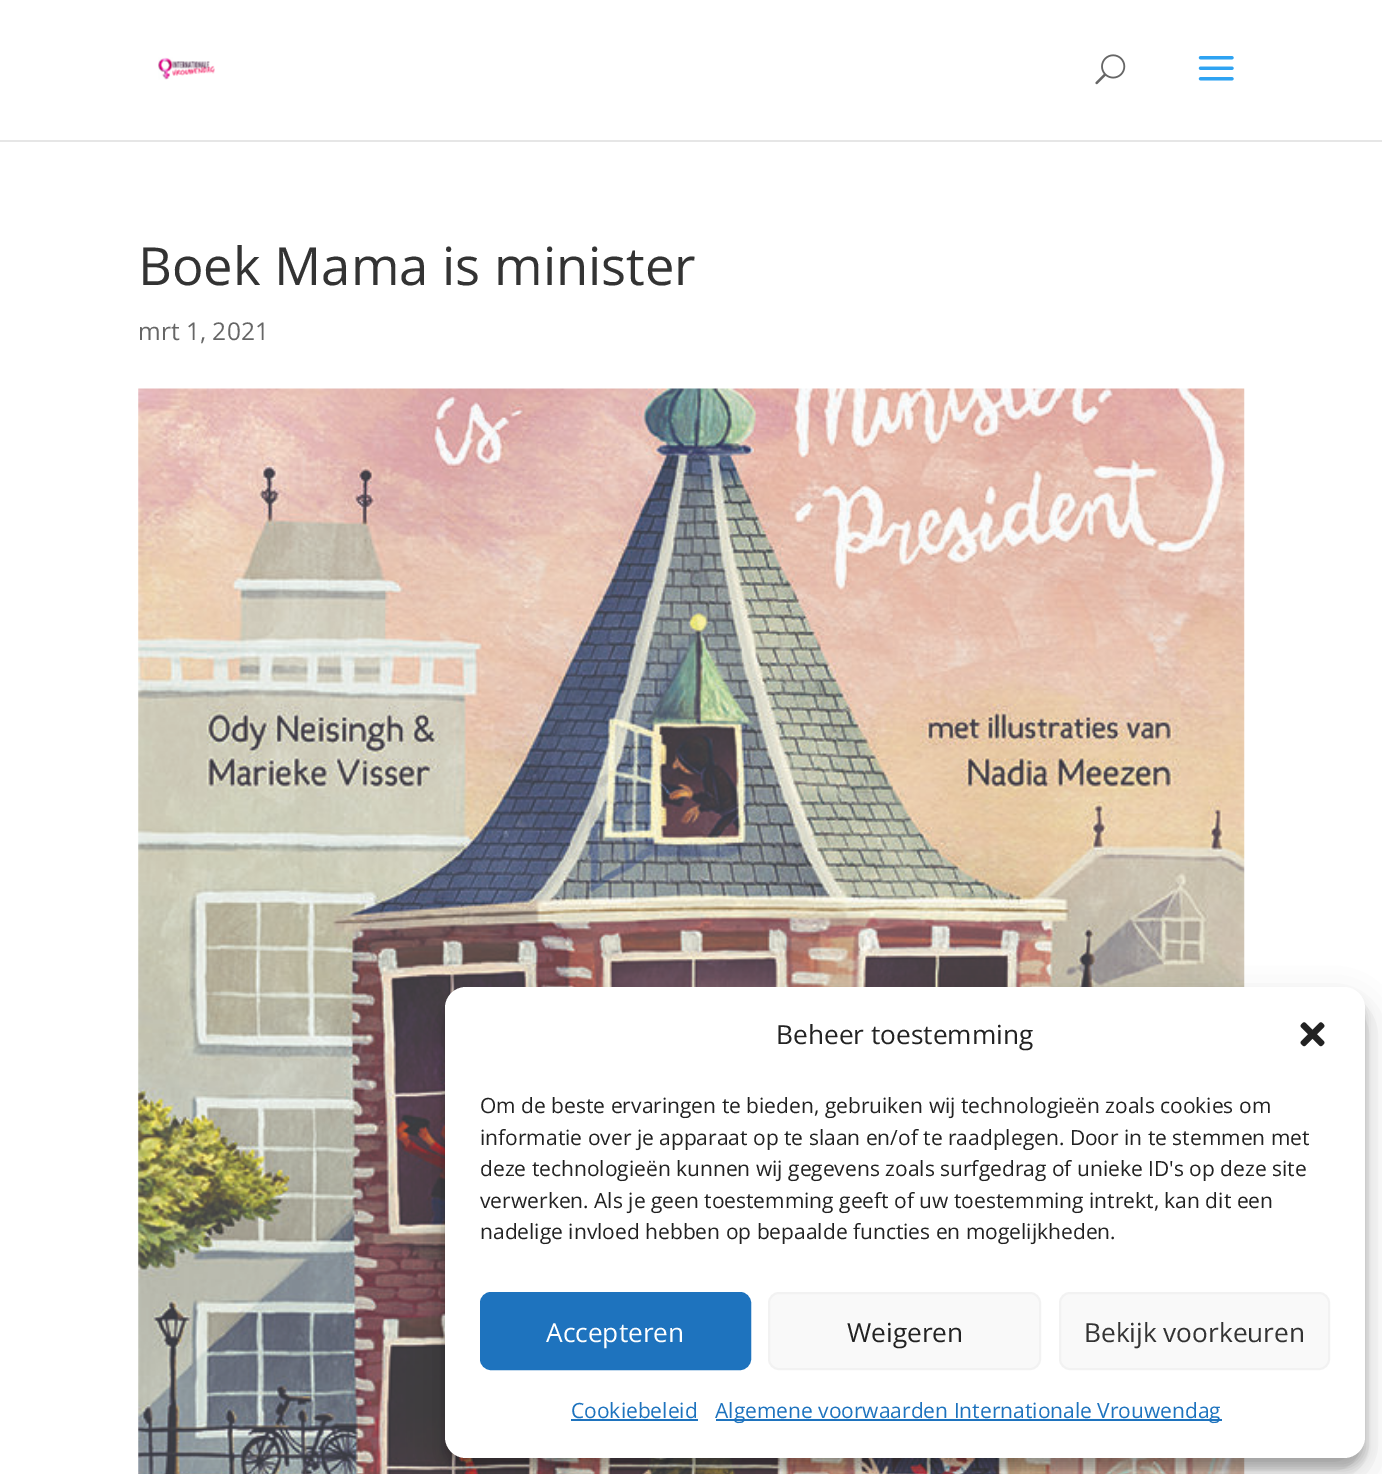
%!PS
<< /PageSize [1382 1474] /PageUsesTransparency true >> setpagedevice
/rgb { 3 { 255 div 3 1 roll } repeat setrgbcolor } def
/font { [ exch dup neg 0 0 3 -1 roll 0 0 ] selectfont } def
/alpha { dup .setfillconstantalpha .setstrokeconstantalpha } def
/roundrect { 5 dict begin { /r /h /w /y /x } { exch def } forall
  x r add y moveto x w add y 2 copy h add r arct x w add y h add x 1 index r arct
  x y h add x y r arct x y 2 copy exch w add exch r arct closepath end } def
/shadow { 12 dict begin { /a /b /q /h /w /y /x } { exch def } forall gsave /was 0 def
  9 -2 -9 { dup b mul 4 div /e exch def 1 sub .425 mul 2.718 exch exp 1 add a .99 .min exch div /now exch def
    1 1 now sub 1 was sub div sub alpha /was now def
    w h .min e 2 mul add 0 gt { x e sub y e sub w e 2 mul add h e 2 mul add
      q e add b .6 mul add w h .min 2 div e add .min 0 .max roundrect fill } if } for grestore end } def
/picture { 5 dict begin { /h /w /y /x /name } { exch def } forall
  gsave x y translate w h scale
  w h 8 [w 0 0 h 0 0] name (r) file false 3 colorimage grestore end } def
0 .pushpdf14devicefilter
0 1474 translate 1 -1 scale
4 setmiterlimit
255 255 255 rgb
0 0 1382 1474 rectfill
230 230 230 rgb
0 140 moveto 0 142 lineto 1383 142 lineto 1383 2 lineto 1382 2 lineto 1382 140 lineto closepath fill
(img/1.rgb) 158 57 57 23 picture
(img/2.rgb) 1095 54 31 31 picture
(img/3.rgb) 1198 56 36 25 picture
(img/4.rgb) 138 388 1107 1086 picture
0 0 0 rgb
445 998 920 470 21 5 0.23 shadow
445 1005 920 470 21 17.5 0.19 shadow
255 255 255 rgb
445 987 920 471 21 roundrect fill
(img/5.rgb) 1300 1022 25 25 picture
30 115 190 rgb
481 1293 269 76 10 roundrect gsave fill grestore
2 setlinewidth
stroke
249 249 249 rgb
769 1293 271 76 10 roundrect gsave fill grestore
242 242 242 rgb
stroke
249 249 249 rgb
1060 1293 269 76 10 roundrect gsave fill grestore
242 242 242 rgb
stroke
30 115 190 rgb
571 1419 127 2 rectfill
716 1419 506 2 rectfill
/OpenSans-Regular 52.5 font
51 51 51 rgb
138 285 moveto (Boek Mama is minister) show
/OpenSans-Regular 24.5 font
102 102 102 rgb
138 340 moveto (mrt 1, 2021) show
/OpenSans-Regular 26.25 font
34 34 34 rgb
776 1044 moveto (Beheer toestemming) show
/OpenSans-Regular 21 font
[
  [(Om de beste ervaringen te bieden, gebruiken wij technologieën zoals cookies om) 480 1113]
  [(informatie over je apparaat op te slaan en/of te raadplegen. Door in te stemmen met) 480 1145]
  [(deze technologieën kunnen wij gegevens zoals surfgedrag of unieke ID's op deze site) 480 1176]
  [(verwerken. Als je geen toestemming geeft of uw toestemming intrekt, kan dit een) 480 1208]
  [(nadelige invloed hebben op bepaalde functies en mogelijkheden.) 480 1239]
] { aload pop moveto show } forall
/OpenSans-Regular 26.25 font
255 255 255 rgb
546 1342 moveto (Accepteren) show
34 34 34 rgb
847 1342 moveto (Weigeren) show
51 51 51 rgb
1084 1342 moveto (Bekijk voorkeuren) show
/OpenSans-Regular 21 font
30 115 190 rgb
571 1418 moveto (Cookiebeleid) show
715 1418 moveto (Algemene voorwaarden Internationale Vrouwendag) show
.poppdf14devicefilter showpage
